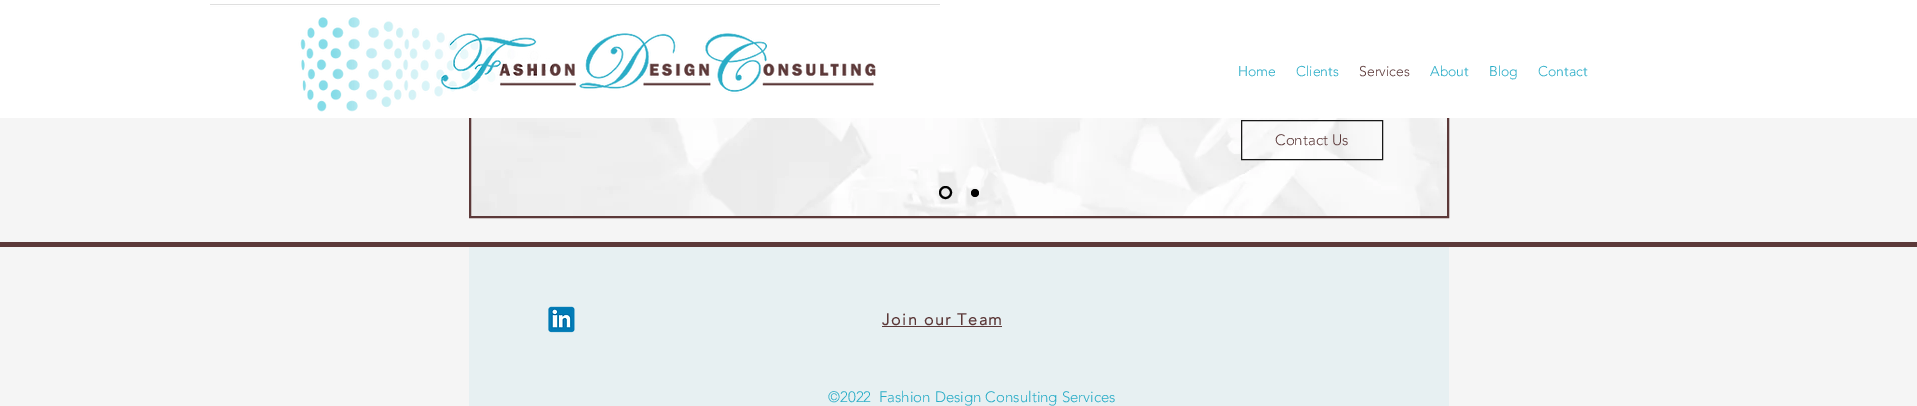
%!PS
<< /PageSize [1917 406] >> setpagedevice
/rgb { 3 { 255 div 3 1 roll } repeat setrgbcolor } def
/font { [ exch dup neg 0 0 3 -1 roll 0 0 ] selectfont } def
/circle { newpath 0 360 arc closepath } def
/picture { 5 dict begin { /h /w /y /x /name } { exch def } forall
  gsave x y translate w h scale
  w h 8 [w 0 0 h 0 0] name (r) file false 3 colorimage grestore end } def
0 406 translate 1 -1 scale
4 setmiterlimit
245 245 245 rgb
0 0 1917 406 rectfill
(img/2.rgb) 471 118 976 98 picture
92 57 57 rgb
2 setlinewidth
470 -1 978 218 rectstroke
255 255 255 rgb
0 0 1917 118 rectfill
(img/1.rgb) 210 4 730 108 picture
24 24 24 rgb
1 setlinewidth
1241.5 120.5 141 39 rectstroke
0 0 0 rgb
2 setlinewidth
945.5 192.5 5.5 circle stroke
975 193 4 circle fill
92 57 57 rgb
0 242 1917 5 rectfill
231 240 242 rgb
469 247 980 159 rectfill
(img/3.rgb) 548 306 27 27 picture
92 57 57 rgb
882 326 120 1 rectfill
/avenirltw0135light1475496-Light 14 font
40 172 199 rgb
1238 76 moveto (Home) show
1296 76 moveto (Clients) show
92 57 57 rgb
1359 76 moveto (Services) show
40 172 199 rgb
[
  [(About) 1430 76]
  [(Blog) 1489 76]
  [(Contact) 1538 76]
] { aload pop moveto show } forall
/avenirltw0135light1475496-Light 15 font
92 57 57 rgb
1275 145 moveto (Contact Us) show
/avenirltw0135light1475496-Bold 16 font
882 325 moveto 1.5 0 (Join our Team) ashow
/avenirltw0135light1475496-Light 15 font
40 172 199 rgb
828 402 moveto (©2022  Fashion Design Consulting Services) show
showpage
